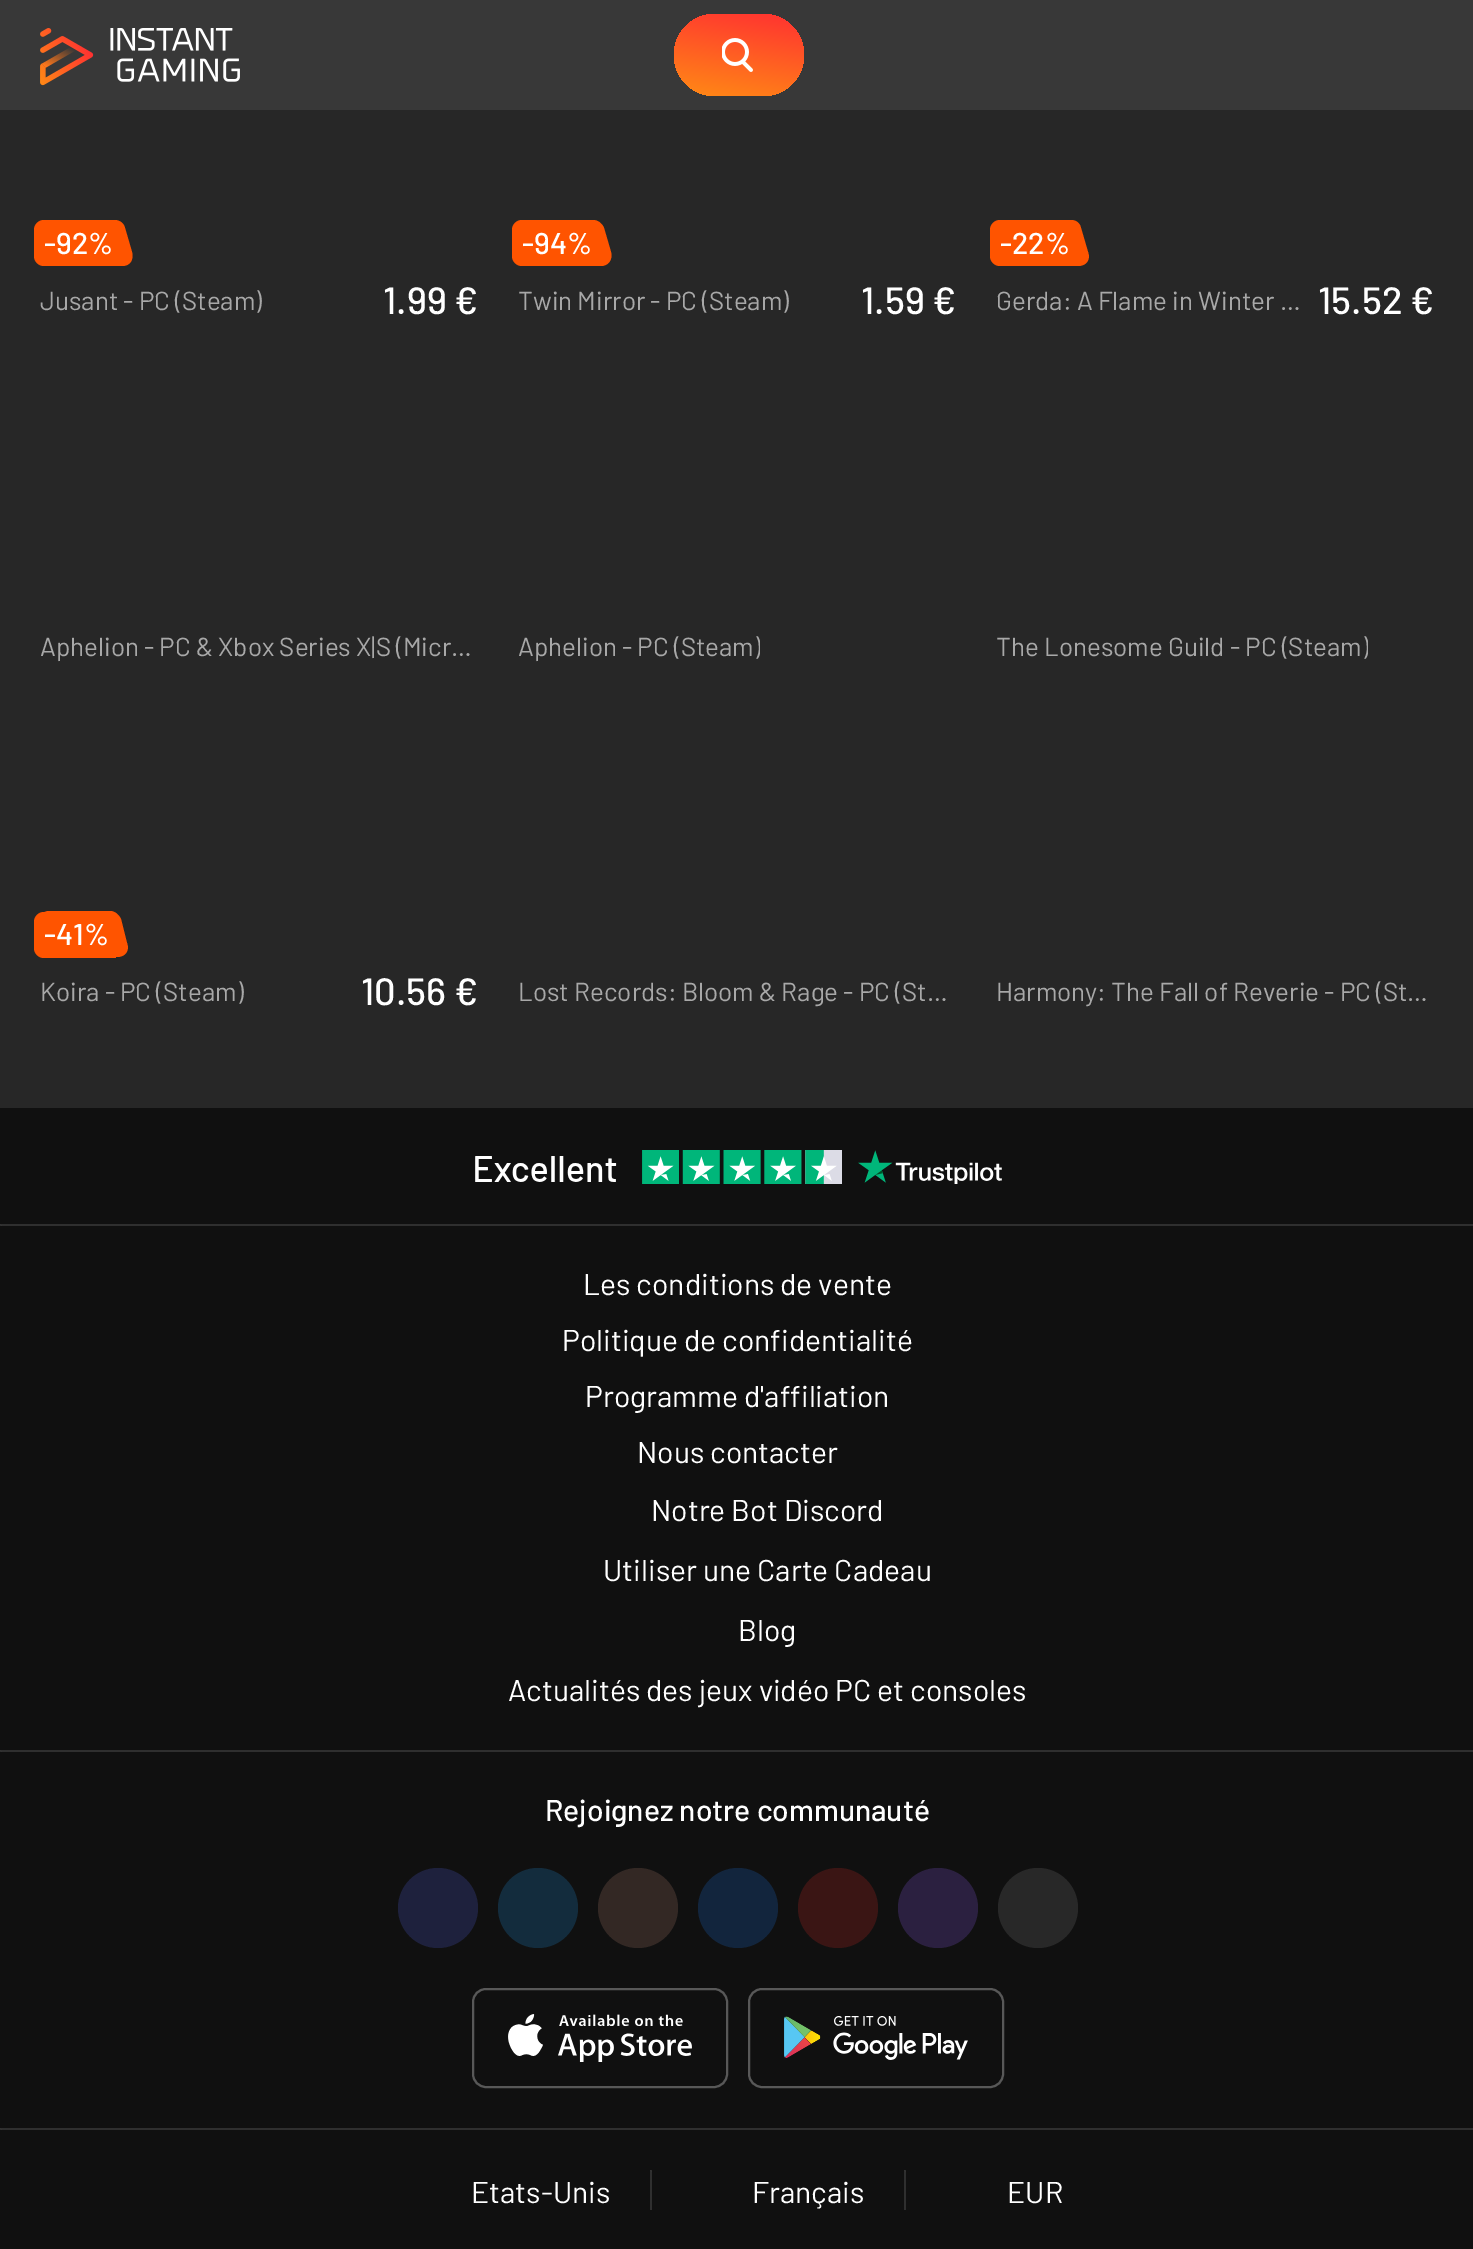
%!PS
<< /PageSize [1473 2249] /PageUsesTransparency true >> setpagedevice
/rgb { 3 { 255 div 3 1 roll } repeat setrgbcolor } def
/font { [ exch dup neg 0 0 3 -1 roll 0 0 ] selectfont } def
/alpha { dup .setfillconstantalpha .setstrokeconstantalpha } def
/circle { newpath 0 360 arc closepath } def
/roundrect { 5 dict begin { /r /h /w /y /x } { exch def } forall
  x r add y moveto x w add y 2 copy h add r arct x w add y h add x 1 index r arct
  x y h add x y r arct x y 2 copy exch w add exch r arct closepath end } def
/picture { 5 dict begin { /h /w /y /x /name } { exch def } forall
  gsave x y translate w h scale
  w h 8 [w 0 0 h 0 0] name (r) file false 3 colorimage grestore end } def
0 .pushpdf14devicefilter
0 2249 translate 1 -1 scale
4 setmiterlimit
39 39 39 rgb
0 0 1473 2249 rectfill
56 56 56 rgb
0 0 1473 110 rectfill
(img/1.rgb) 40 28 200 58 picture
gsave 674 14 130 82 41 roundrect clip newpath
<< /ShadingType 2 /ColorSpace /DeviceRGB /Coords [729 106 747 4.1] /Extend [true true] /Function << /FunctionType 2 /Domain [0 1] /C0 [1 0.541 0.082] /C1 [1 0.192 0.192] /N 1 >> >> shfill grestore
(img/2.rgb) 722 38 31 34 picture
255 84 0 rgb
44 220 moveto 112 220 lineto 117.5 220 122 224.5 122 230 curveto 122 266 lineto 44 266 lineto 38.5 266 34 261.5 34 256 curveto 34 230 lineto 34 224.5 38.5 220 44 220 curveto closepath fill
49 220 moveto 115 220 lineto 119 220 124 223 125 228 curveto 132 252 lineto 134 260 130 266 122 266 curveto 57 266 lineto 52 266 48 262 46 258 curveto 39 234 lineto 37 226 42 220 49 220 curveto closepath fill
522 220 moveto 590 220 lineto 595.5 220 600 224.5 600 230 curveto 600 266 lineto 522 266 lineto 516.5 266 512 261.5 512 256 curveto 512 230 lineto 512 224.5 516.5 220 522 220 curveto closepath fill
527 220 moveto 593 220 lineto 598 220 602 223 604 228 curveto 611 252 lineto 613 260 608 266 601 266 curveto 535 266 lineto 530 266 526 262 524 258 curveto 517 234 lineto 515 226 520 220 527 220 curveto closepath fill
1000 220 moveto 1068 220 lineto 1073.5 220 1078 224.5 1078 230 curveto 1078 266 lineto 1000 266 lineto 994.5 266 990 261.5 990 256 curveto 990 230 lineto 990 224.5 994.5 220 1000 220 curveto closepath fill
1005 220 moveto 1071 220 lineto 1076 220 1080 223 1081 228 curveto 1088 252 lineto 1091 260 1086 266 1078 266 curveto 1013 266 lineto 1008 266 1004 262 1002 258 curveto 995 234 lineto 993 226 998 220 1005 220 curveto closepath fill
44 912 moveto 106 912 lineto 111.5 912 116 916.5 116 922 curveto 116 958 lineto 44 958 lineto 38.5 958 34 953.5 34 948 curveto 34 922 lineto 34 916.5 38.5 912 44 912 curveto closepath fill
49 911 moveto 110 911 lineto 115 911 119 915 121 919 curveto 127 943 lineto 130 951 125 957 117 957 curveto 57 957 lineto 52 957 48 954 46 949 curveto 39 925 lineto 37 918 42 911 49 911 curveto closepath fill
16 16 16 rgb
0 1108 1473 1141 rectfill
(img/3.rgb) 475 1150 527 34 picture
47 47 47 rgb
0 1224 moveto 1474 1224 lineto 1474 1226 lineto 2 1226 lineto closepath fill
0.2 alpha
170 170 170 rgb
0 1226 moveto 0 1224 lineto 2 1226 lineto closepath fill
1 alpha
47 47 47 rgb
0 1750 moveto 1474 1750 lineto 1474 1752 lineto 2 1752 lineto closepath fill
0.2 alpha
170 170 170 rgb
0 1752 moveto 0 1750 lineto 2 1752 lineto closepath fill
1 alpha
30 33 61 rgb
438 1908 40 circle fill
19 44 61 rgb
538 1908 40 circle fill
51 40 36 rgb
638 1908 40 circle fill
18 37 61 rgb
738 1908 40 circle fill
58 21 20 rgb
838 1908 40 circle fill
43 32 64 rgb
938 1908 40 circle fill
40 40 40 rgb
1038 1908 40 circle fill
88 88 88 rgb
2 setlinewidth
473 1989 254 98 13 roundrect stroke
(img/4.rgb) 508 2014 184 48 picture
749 1989 254 98 13 roundrect stroke
(img/5.rgb) 784 2016 184 44 picture
47 47 47 rgb
0 2128 moveto 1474 2128 lineto 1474 2130 lineto 2 2130 lineto closepath fill
0.2 alpha
170 170 170 rgb
0 2130 moveto 0 2128 lineto 2 2130 lineto closepath fill
1 alpha
47 47 47 rgb
650 2170 moveto 652 2170 lineto 652 2172 lineto closepath fill
0.2 alpha
170 170 170 rgb
650 2210 moveto 650 2170 lineto 652 2172 lineto 652 2210 lineto closepath fill
1 alpha
47 47 47 rgb
904 2170 moveto 906 2170 lineto 906 2172 lineto closepath fill
0.2 alpha
170 170 170 rgb
904 2210 moveto 904 2170 lineto 906 2172 lineto 906 2210 lineto closepath fill
/Barlow-Medium 30 font
1 alpha
255 255 255 rgb
44 254 moveto (-92%) show
gsave
40 284 222 32 rectclip
/Barlow-Regular 26 font
168 168 168 rgb
40 310 moveto (Jusant - PC \(Steam\)) show
grestore
/Barlow-Medium 38 font
383 314 moveto (1.99 €) show
/Barlow-Medium 30 font
522 254 moveto (-94%) show
/Barlow-Regular 26 font
168 168 168 rgb
518 310 moveto (Twin Mirror - PC \(Steam\)) show
/Barlow-Medium 38 font
255 255 255 rgb
861 314 moveto (1.59 €) show
/Barlow-Medium 30 font
1000 254 moveto (-22%) show
/Barlow-Regular 26 font
168 168 168 rgb
996 310 moveto (Gerda: A Flame in Winter …) show
/Barlow-Medium 38 font
255 255 255 rgb
1318 314 moveto (15.52 €) show
/Barlow-Regular 26 font
168 168 168 rgb
40 656 moveto (Aphelion - PC & Xbox Series X|S \(Micr…) show
gsave
518 630 242 32 rectclip
518 656 moveto (Aphelion - PC \(Steam\)) show
grestore
gsave
996 630 372 32 rectclip
996 656 moveto (The Lonesome Guild - PC \(Steam\)) show
grestore
/Barlow-Medium 30 font
255 255 255 rgb
44 945 moveto (-41%) show
/Barlow-Regular 26 font
168 168 168 rgb
40 1001 moveto (Koira - PC \(Steam\)) show
/Barlow-Medium 38 font
255 255 255 rgb
361 1005 moveto (10.56 €) show
/Barlow-Regular 26 font
168 168 168 rgb
518 1001 moveto (Lost Records: Bloom & Rage - PC \(St…) show
996 1001 moveto (Harmony: The Fall of Reverie - PC \(St…) show
/Barlow-Regular 30 font
255 255 255 rgb
[
  [(Les conditions de vente) 583 1295]
  [(Politique de confidentialité) 562 1351]
  [(Programme d'affiliation) 585 1407]
  [(Nous contacter) 637 1463]
  [(Notre Bot Discord) 651 1521]
  [(Utiliser une Carte Cadeau) 603 1581]
  [(Blog) 738 1641]
  [(Actualités des jeux vidéo PC et consoles) 508 1701]
] { aload pop moveto show } forall
/Barlow-Medium 30 font
545 1821 moveto (Rejoignez notre communauté) show
/Barlow-Regular 30 font
[
  [(Etats-Unis) 471 2203]
  [(Français) 752 2203]
  [(EUR) 1007 2203]
] { aload pop moveto show } forall
.poppdf14devicefilter showpage
